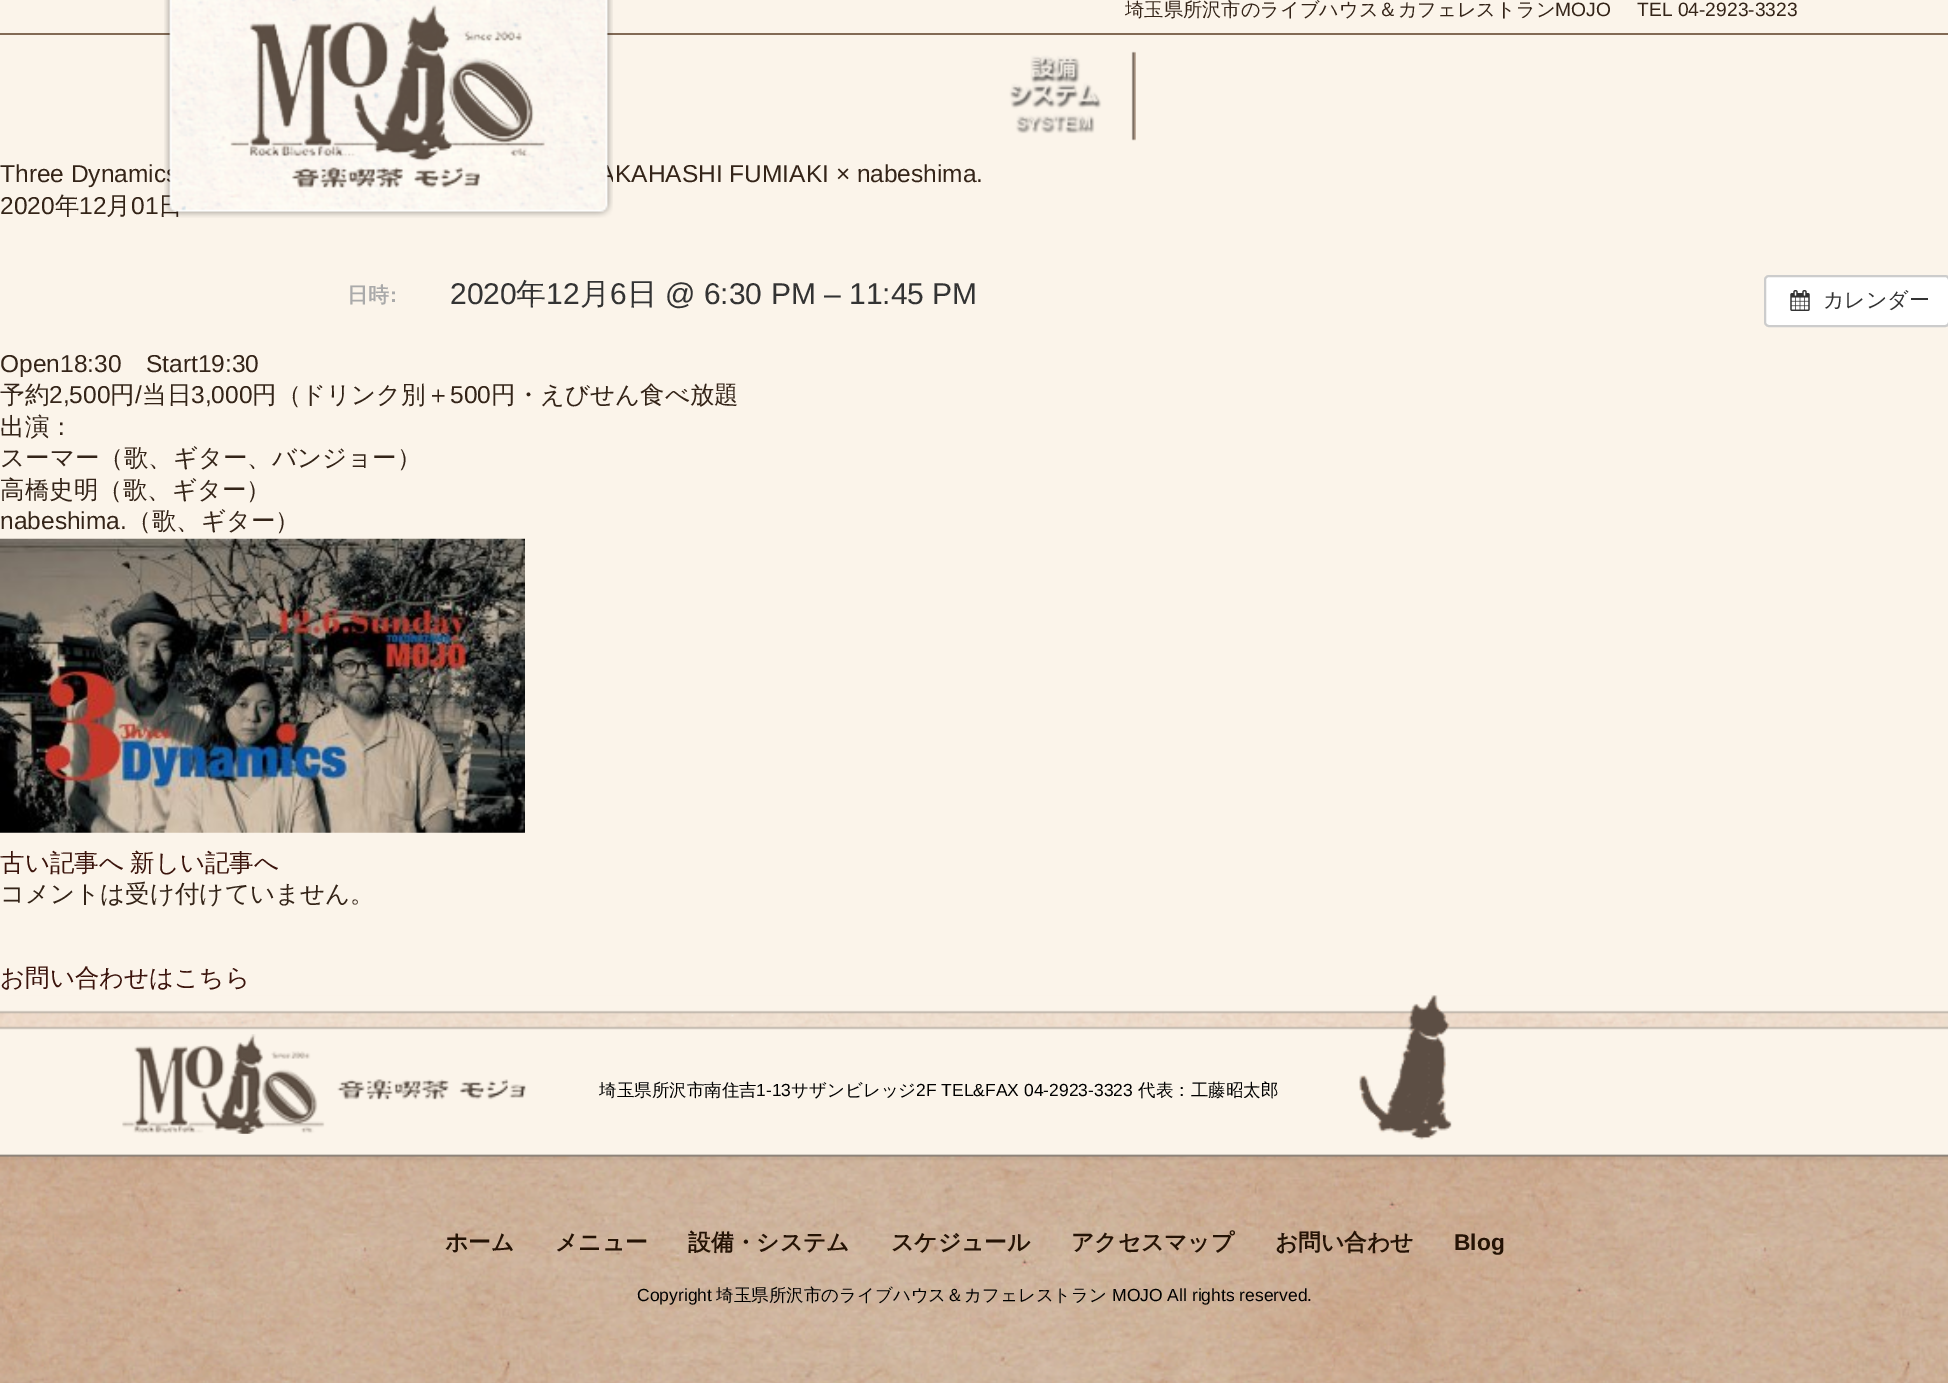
%!PS
<< /PageSize [1948 1383] >> setpagedevice
/rgb { 3 { 255 div 3 1 roll } repeat setrgbcolor } def
/font { [ exch dup neg 0 0 3 -1 roll 0 0 ] selectfont } def
/roundrect { 5 dict begin { /r /h /w /y /x } { exch def } forall
  x r add y moveto x w add y 2 copy h add r arct x w add y h add x 1 index r arct
  x y h add x y r arct x y 2 copy exch w add exch r arct closepath end } def
/picture { 5 dict begin { /h /w /y /x /name } { exch def } forall
  gsave x y translate w h scale
  w h 8 [w 0 0 h 0 0] name (r) file false 3 colorimage grestore end } def
0 1383 translate 1 -1 scale
4 setmiterlimit
251 244 234 rgb
0 0 1948 1383 rectfill
130 106 85 rgb
0 33 1948 2 rectfill
(img/2.rgb) 1009 51 127 90 picture
255 255 255 rgb
1765 276 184 50 4 roundrect gsave fill grestore
204 204 204 rgb
2 setlinewidth
stroke
(img/3.rgb) 1790 290 20 21 picture
(img/4.rgb) 0 538 525 295 picture
(img/5.rgb) 0 995 1948 388 picture
(img/6.rgb) 122 1034 404 100 picture
/WenQuanYiZenHei-Medium 19.25 font
52 36 24 rgb
1125 16 moveto (埼玉県所沢市のライブハウス＆カフェレストラン) show
/LiberationSans-Regular 19.25 font
1555 16 moveto (MOJO) show
1637 16 moveto (TEL 04-2923-3323) show
/LiberationSans-Regular 24.5 font
[
  [(Three Dynamic) 0 182]
  [(KAHASHI FUMIAKI × nabeshima.) 615 182]
  [(2020) 0 214]
] { aload pop moveto show } forall
/WenQuanYiZenHei-Medium 24.5 font
55 214 moveto (年) show
/LiberationSans-Regular 24.5 font
79 214 moveto (12) show
/WenQuanYiZenHei-Medium 24.5 font
106 214 moveto (月) show
/LiberationSans-Regular 24.5 font
131 214 moveto (01) show
/WenQuanYiZenHei-Medium 24.5 font
158 214 moveto (日) show
(img/1.rgb) 164 0 449 218 picture
/WenQuanYiZenHei-Bold 21 font
170 170 170 rgb
347 302 moveto (日時) show
/LiberationSans-Bold 21 font
390 302 moveto (:) show
/LiberationSans-Regular 30 font
51 51 51 rgb
450 304 moveto (2020) show
/WenQuanYiZenHei-Medium 30 font
516 304 moveto (年) show
/LiberationSans-Regular 30 font
546 304 moveto (12) show
/WenQuanYiZenHei-Medium 30 font
580 304 moveto (月) show
/LiberationSans-Regular 30 font
610 304 moveto (6) show
/WenQuanYiZenHei-Medium 30 font
627 304 moveto (日) show
/LiberationSans-Regular 30 font
665 304 moveto (@ 6:30 PM – 11:45 PM) show
/WenQuanYiZenHei-Medium 21 font
1823 307 moveto (カレンダー) show
/LiberationSans-Regular 24.5 font
52 36 24 rgb
0 372 moveto (Open18:30) show
146 372 moveto (Start19:30) show
/WenQuanYiZenHei-Medium 24.5 font
0 403 moveto (予約) show
/LiberationSans-Regular 24.5 font
49 403 moveto (2,500) show
/WenQuanYiZenHei-Medium 24.5 font
110 403 moveto (円) show
/LiberationSans-Regular 24.5 font
135 403 moveto (/) show
/WenQuanYiZenHei-Medium 24.5 font
142 403 moveto (当日) show
/LiberationSans-Regular 24.5 font
191 403 moveto (3,000) show
/WenQuanYiZenHei-Medium 24.5 font
252 403 moveto (円（ドリンク別＋) show
/LiberationSans-Regular 24.5 font
450 403 moveto (500) show
/WenQuanYiZenHei-Medium 24.5 font
[
  [(円・えびせん食べ放題) 491 403]
  [(出演：) 0 435]
  [(スーマー（歌、ギター、バンジョー）) 0 466]
  [(高橋史明（歌、ギター）) 0 498]
] { aload pop moveto show } forall
/LiberationSans-Regular 24.5 font
0 529 moveto (nabeshima.) show
/WenQuanYiZenHei-Medium 24.5 font
127 529 moveto (（歌、ギター）) show
59 20 12 rgb
0 871 moveto (古い記事へ) show
130 871 moveto (新しい記事へ) show
52 36 24 rgb
0 902 moveto (コメントは受け付けていません。) show
59 20 12 rgb
0 986 moveto (お問い合わせはこちら) show
/WenQuanYiZenHei-Medium 17.5 font
0 0 0 rgb
599 1096 moveto (埼玉県所沢市南住吉) show
/LiberationSans-Regular 17.5 font
756 1096 moveto (1-13) show
/WenQuanYiZenHei-Medium 17.5 font
791 1096 moveto (サザンビレッジ) show
/LiberationSans-Regular 17.5 font
916 1096 moveto (2F TEL&FAX 04-2923-3323) show
/WenQuanYiZenHei-Medium 17.5 font
1138 1096 moveto (代表：工藤昭太郎) show
/WenQuanYiZenHei-Bold 22.75 font
37 19 5 rgb
[
  [(ホーム) 445 1250]
  [(メニュー) 555 1250]
  [(設備・システム) 688 1250]
  [(スケジュール) 891 1250]
  [(アクセスマップ) 1071 1250]
  [(お問い合わせ) 1275 1250]
] { aload pop moveto show } forall
/LiberationSans-Bold 22.75 font
1454 1250 moveto (Blog) show
/LiberationSans-Regular 17.5 font
0 0 0 rgb
637 1301 moveto (Copyright) show
/WenQuanYiZenHei-Medium 17.5 font
716 1301 moveto (埼玉県所沢市のライブハウス＆カフェレストラン) show
/LiberationSans-Regular 17.5 font
1112 1301 moveto (MOJO All rights reserved.) show
showpage
